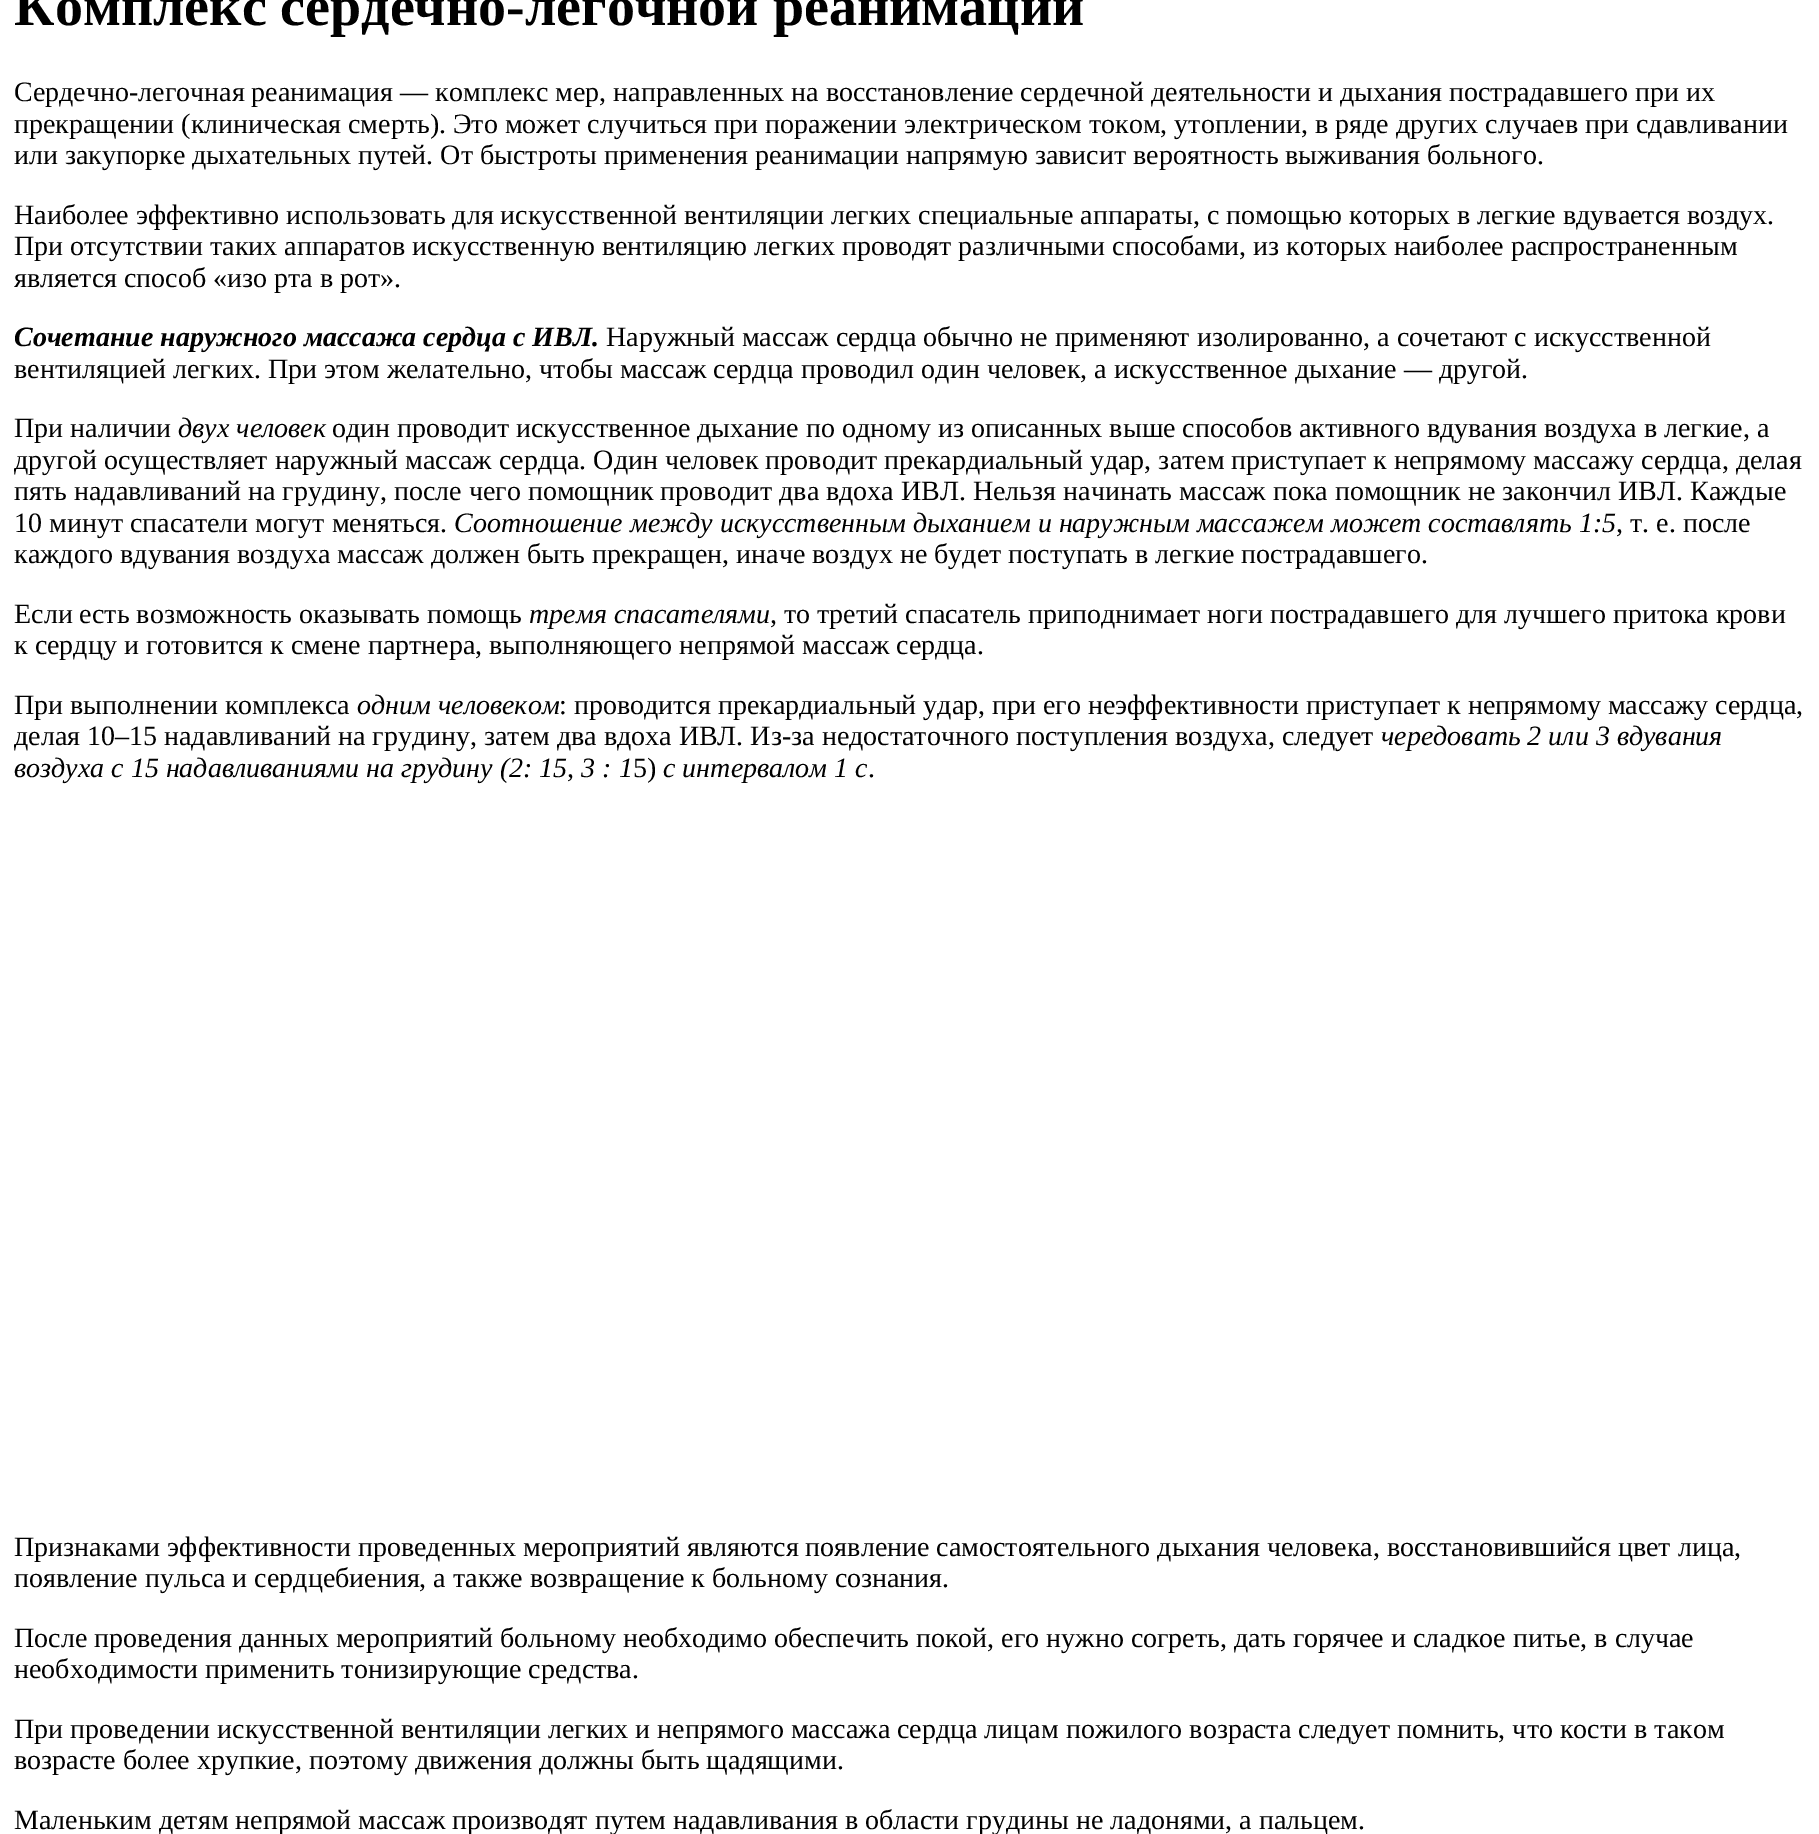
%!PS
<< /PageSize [1819 1834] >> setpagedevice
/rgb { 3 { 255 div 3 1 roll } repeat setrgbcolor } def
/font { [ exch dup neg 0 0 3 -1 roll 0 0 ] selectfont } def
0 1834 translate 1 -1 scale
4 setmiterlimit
255 255 255 rgb
0 0 1819 1834 rectfill
/LiberationSerif-Bold 56 font
0 0 0 rgb
14 25 moveto (Комплекс сердечно-легочной реанимации) show
/LiberationSerif-Regular 28 font
[
  [(Сердечно-легочная реанимация — комплекс мер, направленных на восстановление сердечной деятельности и дыхания пострадавшего при их) 14 101]
  [(прекращении \(клиническая смерть\). Это может случиться при поражении электрическом током, утоплении, в ряде других случаев при сдавливании) 14 133]
  [(или закупорке дыхательных путей. От быстроты применения реанимации напрямую зависит вероятность выживания больного.) 14 164]
  [(Наиболее эффективно использовать для искусственной вентиляции легких специальные аппараты, с помощью которых в легкие вдувается воздух.) 14 224]
  [(При отсутствии таких аппаратов искусственную вентиляцию легких проводят различными способами, из которых наиболее распространенным) 14 255]
  [(является способ «изо рта в рот».) 14 287]
] { aload pop moveto show } forall
/LiberationSerif-BoldItalic 28 font
14 346 moveto (Сочетание наружного массажа сердца с ИВЛ.) show
/LiberationSerif-Regular 28 font
[
  [(Наружный массаж сердца обычно не применяют изолированно, а сочетают с искусственной) 606 346]
  [(вентиляцией легких. При этом желательно, чтобы массаж сердца проводил один человек, а искусственное дыхание — другой.) 14 378]
  [(При наличии) 14 437]
] { aload pop moveto show } forall
/LiberationSerif-Italic 28 font
178 437 moveto (двух человек) show
/LiberationSerif-Regular 28 font
[
  [(один проводит искусственное дыхание по одному из описанных выше способов активного вдувания воздуха в легкие, а) 332 437]
  [(другой осуществляет наружный массаж сердца. Один человек проводит прекардиальный удар, затем приступает к непрямому массажу сердца, делая) 14 469]
  [(пять надавливаний на грудину, после чего помощник проводит два вдоха ИВЛ. Нельзя начинать массаж пока помощник не закончил ИВЛ. Каждые) 14 500]
  [(10 минут спасатели могут меняться.) 14 532]
] { aload pop moveto show } forall
/LiberationSerif-Italic 28 font
454 532 moveto (Соотношение между искусственным дыханием и наружным массажем может составлять 1:5,) show
/LiberationSerif-Regular 28 font
[
  [(т. е. после) 1630 532]
  [(каждого вдувания воздуха массаж должен быть прекращен, иначе воздух не будет поступать в легкие пострадавшего.) 14 563]
  [(Если есть возможность оказывать помощь) 14 623]
] { aload pop moveto show } forall
/LiberationSerif-Italic 28 font
529 623 moveto (тремя спасателями,) show
/LiberationSerif-Regular 28 font
[
  [(то третий спасатель приподнимает ноги пострадавшего для лучшего притока крови) 784 623]
  [(к сердцу и готовится к смене партнера, выполняющего непрямой массаж сердца.) 14 654]
  [(При выполнении комплекса) 14 714]
] { aload pop moveto show } forall
/LiberationSerif-Italic 28 font
357 714 moveto (одним человеком) show
/LiberationSerif-Regular 28 font
559 714 moveto (: проводится прекардиальный удар, при его неэффективности приступает к непрямому массажу сердца,) show
14 745 moveto (делая 10–15 надавливаний на грудину, затем два вдоха ИВЛ. Из-за недостаточного поступления воздуха, следует) show
/LiberationSerif-Italic 28 font
1381 745 moveto (чередовать 2 или 3 вдувания) show
14 777 moveto (воздуха с 15 надавливаниями на грудину \(2: 15, 3 : 1) show
/LiberationSerif-Regular 28 font
633 777 moveto (5\)) show
/LiberationSerif-Italic 28 font
663 777 moveto (с интервалом 1 с) show
/LiberationSerif-Regular 28 font
[
  [(.) 868 777]
  [(Признаками эффективности проведенных мероприятий являются появление самостоятельного дыхания человека, восстановившийся цвет лица,) 14 1556]
  [(появление пульса и сердцебиения, а также возвращение к больному сознания.) 14 1587]
  [(После проведения данных мероприятий больному необходимо обеспечить покой, его нужно согреть, дать горячее и сладкое питье, в случае) 14 1647]
  [(необходимости применить тонизирующие средства.) 14 1678]
  [(При проведении искусственной вентиляции легких и непрямого массажа сердца лицам пожилого возраста следует помнить, что кости в таком) 14 1738]
  [(возрасте более хрупкие, поэтому движения должны быть щадящими.) 14 1769]
  [(Маленьким детям непрямой массаж производят путем надавливания в области грудины не ладонями, а пальцем.) 14 1829]
] { aload pop moveto show } forall
showpage
